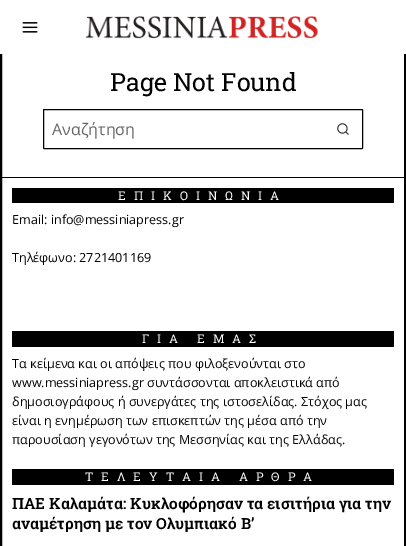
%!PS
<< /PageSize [406 546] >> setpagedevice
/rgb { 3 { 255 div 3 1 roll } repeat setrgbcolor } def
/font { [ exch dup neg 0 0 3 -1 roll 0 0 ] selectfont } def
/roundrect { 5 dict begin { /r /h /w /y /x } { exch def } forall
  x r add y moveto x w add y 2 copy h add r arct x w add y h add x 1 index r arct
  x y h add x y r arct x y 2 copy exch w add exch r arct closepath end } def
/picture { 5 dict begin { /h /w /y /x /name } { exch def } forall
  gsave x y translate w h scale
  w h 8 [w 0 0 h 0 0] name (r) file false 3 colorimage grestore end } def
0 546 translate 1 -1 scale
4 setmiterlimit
255 255 255 rgb
0 0 406 546 rectfill
0 0 0 rgb
2 setlinewidth
1 1 404 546 rectstroke
255 255 255 rgb
0 0 406 54 rectfill
(img/1.rgb) 22 22 16 11 picture
(img/2.rgb) 85 16 233 23 picture
0 0 0 rgb
1 setlinewidth
43.5 109.5 319 39 0.5 roundrect stroke
(img/3.rgb) 337 123 12 12 picture
[
  [2 177 402 1 0 0 0]
  [12 188 382 15 0 0 0]
  [12 331 382 16 0 0 0]
  [12 469 382 16 0 0 0]
] { aload pop rgb rectfill } forall
/RobotoSlab-Regular 25 font
110 91 moveto (Page Not Found) show
/OpenSans-Regular 16 font
102 102 102 rgb
52 135 moveto (Αναζήτηση) show
/RobotoSlab-Regular 12 font
255 255 255 rgb
118 200 moveto 8 0 (ΕΠΙΚΟΙΝΩΝΙΑ) ashow
/OpenSans-Regular 12.6 font
0 0 0 rgb
12 224 moveto (Email: info@messiniapress.gr) show
12 262 moveto (Τηλέφωνο: 2721401169) show
/RobotoSlab-Regular 12 font
255 255 255 rgb
142 343 moveto 8 0 (ΓΙΑ ΕΜΑΣ) ashow
/OpenSans-Regular 12.6 font
0 0 0 rgb
[
  [(Τα κείμενα και οι απόψεις που φιλοξενούνται στο) 12 368]
  [(www.messiniapress.gr συντάσσονται αποκλειστικά από) 12 387]
  [(δημοσιογράφους ή συνεργάτες της ιστοσελίδας. Στόχος μας) 12 406]
  [(είναι η ενημέρωση των επισκεπτών της μέσα από την) 12 425]
  [(παρουσίαση γεγονότων της Μεσσηνίας και της Ελλάδας.) 12 444]
] { aload pop moveto show } forall
/RobotoSlab-Regular 12 font
255 255 255 rgb
85 481 moveto 8 0 (ΤΕΛΕΥΤΑΙΑ ΑΡΘΡΑ) ashow
/RobotoSlab-SemiBold 15.4 font
0 0 0 rgb
12 509 moveto (ΠΑΕ Καλαμάτα: Κυκλοφόρησαν τα εισιτήρια για την) show
12 529 moveto (αναμέτρηση με τον Ολυμπιακό Β’) show
showpage
